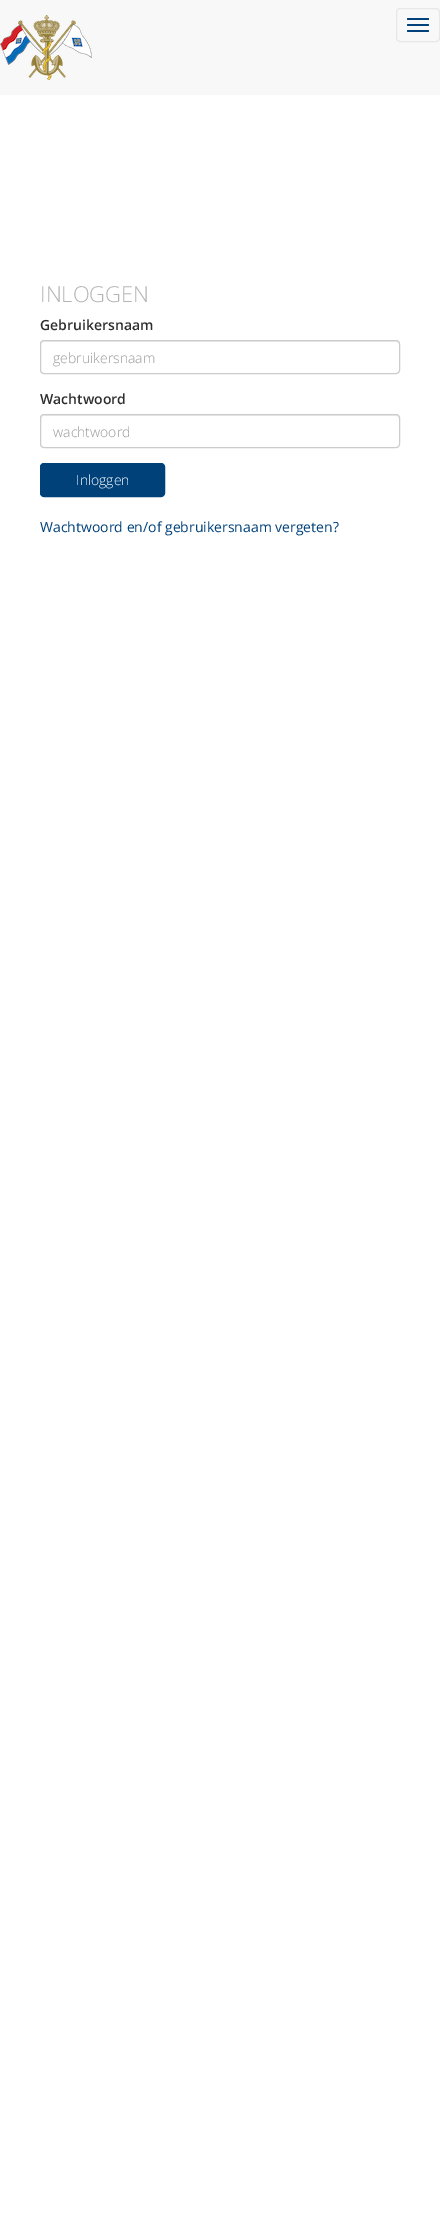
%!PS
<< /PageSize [440 2236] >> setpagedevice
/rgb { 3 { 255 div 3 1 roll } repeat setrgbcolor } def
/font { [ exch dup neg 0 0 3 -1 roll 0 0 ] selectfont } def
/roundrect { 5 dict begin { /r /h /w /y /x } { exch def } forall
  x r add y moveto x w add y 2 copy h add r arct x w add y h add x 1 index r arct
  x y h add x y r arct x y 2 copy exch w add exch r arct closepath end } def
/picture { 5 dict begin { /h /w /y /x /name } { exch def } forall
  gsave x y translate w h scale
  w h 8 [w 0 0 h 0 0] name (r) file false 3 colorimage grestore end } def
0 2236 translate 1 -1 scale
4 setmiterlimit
255 255 255 rgb
0 0 440 2236 rectfill
248 248 248 rgb
0 0 440 95 rectfill
(img/1.rgb) 0 15 92 65 picture
231 231 231 rgb
396.5 8.5 43 33 3.5 roundrect stroke
0 65 122 rgb
407 18 22 2 1 roundrect fill
407 24 22 2 1 roundrect fill
407 30 22 2 1 roundrect fill
236 236 236 rgb
44 342 moveto 396 342 lineto 398 342 399 343 399 345 curveto 399 343 398 341 396 341 curveto 44 341 lineto 42 342 lineto 41 345 lineto 41 343 42 342 44 342 curveto closepath fill
204 204 204 rgb
40.5 340.5 359 33 3.5 roundrect stroke
236 236 236 rgb
44 416 moveto 396 416 lineto 398 416 399 417 399 419 curveto 399 417 398 415 396 415 curveto 44 415 lineto 42 416 lineto 41 419 lineto 41 417 42 416 44 416 curveto closepath fill
204 204 204 rgb
40.5 414.5 359 33 3.5 roundrect stroke
0 65 122 rgb
40.5 463.5 124 33 3.5 roundrect gsave fill grestore
stroke
/OpenSans-Light 22 font
181 181 181 rgb
40 302 moveto (INLOGGEN) show
/OpenSans-SemiBold 14 font
46 46 46 rgb
40 330 moveto (Gebruikersnaam) show
/OpenSans-Light 14 font
153 153 153 rgb
53 363 moveto (gebruikersnaam) show
/OpenSans-SemiBold 14 font
46 46 46 rgb
40 404 moveto (Wachtwoord) show
/OpenSans-Light 14 font
153 153 153 rgb
53 437 moveto (wachtwoord) show
255 255 255 rgb
76 485 moveto (Inloggen) show
/OpenSans-Regular 14 font
0 65 122 rgb
40 532 moveto (Wachtwoord en/of gebruikersnaam vergeten?) show
showpage
